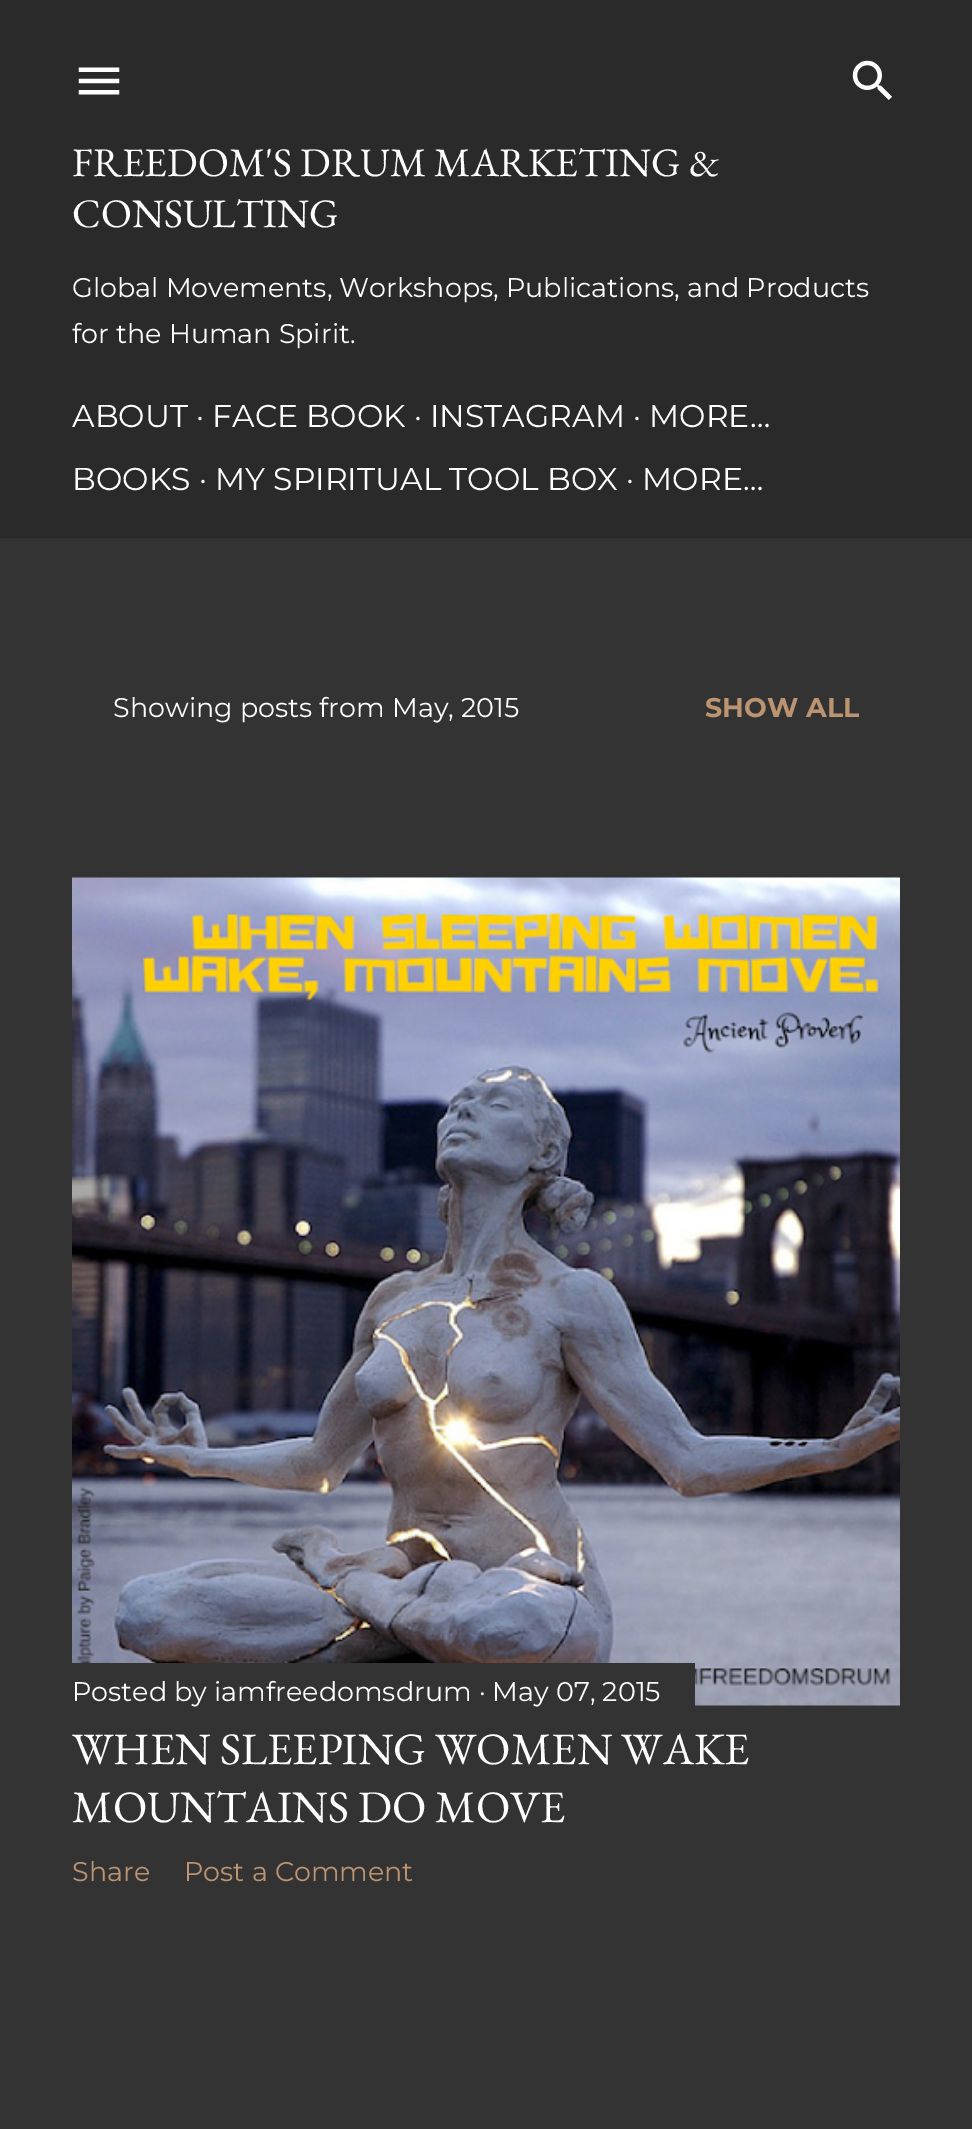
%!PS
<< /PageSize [972 2129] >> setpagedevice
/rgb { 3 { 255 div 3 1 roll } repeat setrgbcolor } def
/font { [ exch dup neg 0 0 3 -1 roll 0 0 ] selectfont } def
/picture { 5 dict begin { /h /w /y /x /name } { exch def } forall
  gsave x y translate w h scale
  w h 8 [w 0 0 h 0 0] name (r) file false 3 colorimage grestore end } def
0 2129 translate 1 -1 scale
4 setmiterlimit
51 51 51 rgb
0 0 972 2129 rectfill
42 42 42 rgb
0 0 972 538 rectfill
(img/1.rgb) 78 67 42 28 picture
(img/2.rgb) 852 60 40 40 picture
(img/3.rgb) 72 877 828 829 picture
51 51 51 rgb
72 1663 623 43 rectfill
/EBGaramond-Regular 40.5 font
255 255 255 rgb
72 176 moveto (FREEDOM'S DRUM MARKETING &) show
72 227 moveto (CONSULTING) show
/Montserrat-Regular 27 font
72 297 moveto (Global Movements, Workshops, Publications, and Products) show
72 343 moveto (for the Human Spirit.) show
/Montserrat-Regular 31.5 font
72 427 moveto (ABOUT · FACE BOOK · INSTAGRAM · MORE…) show
72 490 moveto (BOOKS · MY SPIRITUAL TOOL BOX · MORE…) show
/Montserrat-Regular 27 font
113 717 moveto (Showing posts from May, 2015) show
/Montserrat-Bold 27 font
188 148 114 rgb
705 717 moveto (SHOW ALL) show
/Montserrat-Regular 27 font
255 255 255 rgb
72 1701 moveto (Posted by iamfreedomsdrum · May 07, 2015) show
/EBGaramond-Regular 45 font
72 1764 moveto (WHEN SLEEPING WOMEN WAKE) show
72 1822 moveto (MOUNTAINS DO MOVE) show
/Montserrat-Regular 27 font
188 148 114 rgb
72 1881 moveto (Share) show
184 1881 moveto (Post a Comment) show
showpage
